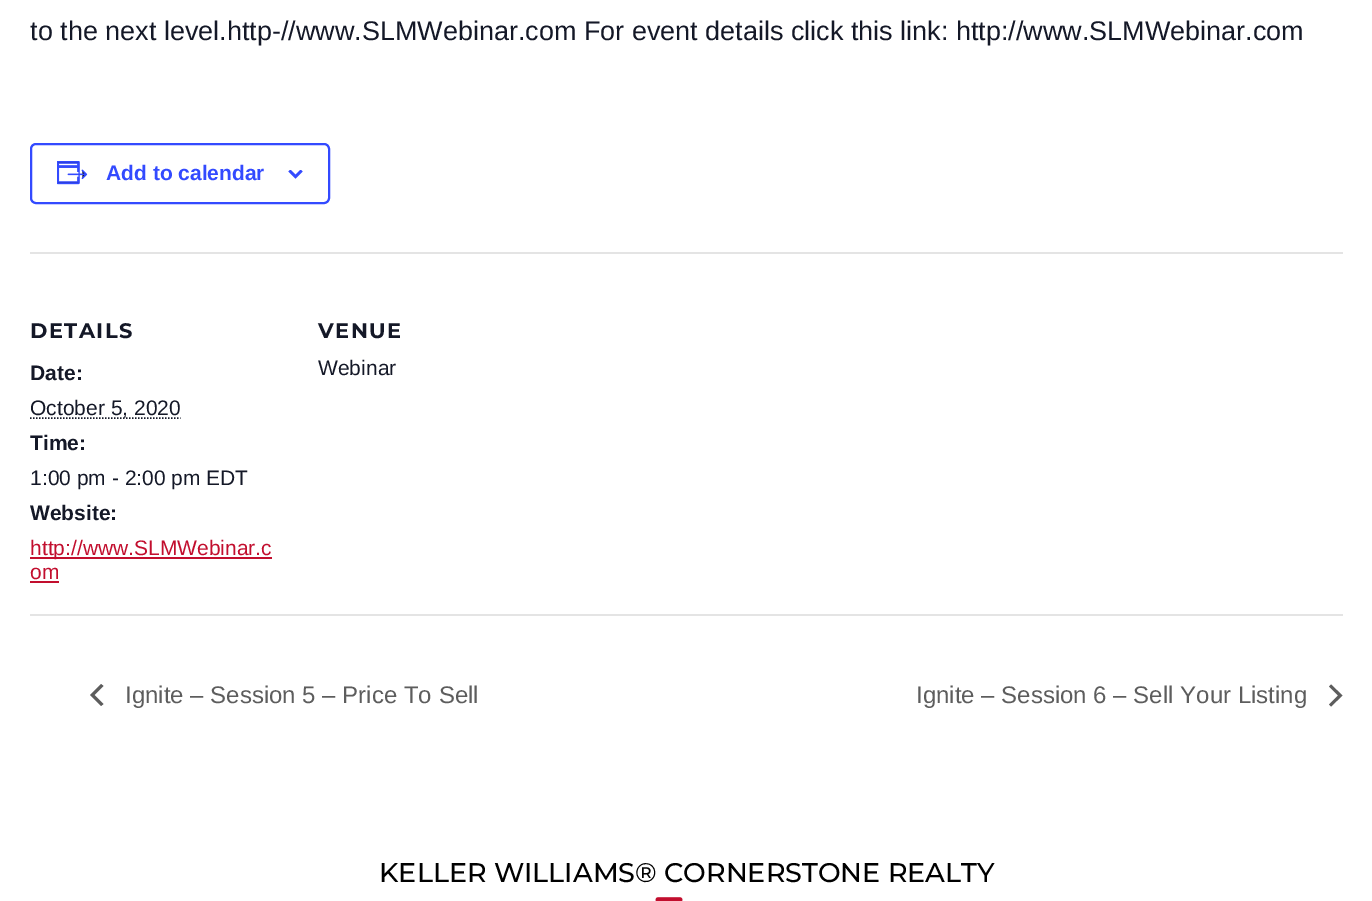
%!PS
<< /PageSize [1372 901] >> setpagedevice
/rgb { 3 { 255 div 3 1 roll } repeat setrgbcolor } def
/font { [ exch dup neg 0 0 3 -1 roll 0 0 ] selectfont } def
/roundrect { 5 dict begin { /r /h /w /y /x } { exch def } forall
  x r add y moveto x w add y 2 copy h add r arct x w add y h add x 1 index r arct
  x y h add x y r arct x y 2 copy exch w add exch r arct closepath end } def
/picture { 5 dict begin { /h /w /y /x /name } { exch def } forall
  gsave x y translate w h scale
  w h 8 [w 0 0 h 0 0] name (r) file false 3 colorimage grestore end } def
0 901 translate 1 -1 scale
4 setmiterlimit
255 255 255 rgb
0 0 1372 901 rectfill
51 74 255 rgb
2 setlinewidth
31 144 298 59 5 roundrect stroke
(img/1.rgb) 57 161 31 24 picture
(img/2.rgb) 288 170 15 9 picture
228 228 228 rgb
30 252 1313 2 rectfill
20 24 39 rgb
1.5 setlinewidth
[1.5 1.5] 0 setdash
30 418 moveto 180.5 418 lineto stroke
[
  [30 557 242 2 194 14 46]
  [30 581 29 2 194 14 46]
  [30 614 1313 2 228 228 228]
] { aload pop rgb rectfill } forall
93 93 93 rgb
103.5 704 moveto 101 706 lineto 90 695 lineto 101 684 lineto 103.5 686 lineto 94.5 695 lineto closepath fill
1329 686.5 moveto 1331 684.5 lineto 1342.5 695.5 lineto 1331 706.5 lineto 1329 704.5 lineto 1338 695.5 lineto closepath fill
(img/3.rgb) 655 897 28 4 picture
/LiberationSans-Regular 27 font
20 24 39 rgb
30 40 moveto (to the next level.http-//www.SLMWebinar.com For event details click this link: http://www.SLMWebinar.com) show
/LiberationSans-Bold 21 font
51 74 255 rgb
106 180 moveto (Add to calendar) show
/Montserrat-Bold 21 font
20 24 39 rgb
30 338 moveto 1.5 0 (DETAILS) ashow
/LiberationSans-Bold 21 font
30 380 moveto (Date:) show
/LiberationSans-Regular 21 font
30 415 moveto (October 5, 2020) show
/LiberationSans-Bold 21 font
30 450 moveto (Time:) show
/LiberationSans-Regular 21 font
30 485 moveto (1:00 pm - 2:00 pm EDT) show
/LiberationSans-Bold 21 font
30 520 moveto (Website:) show
/LiberationSans-Regular 21 font
194 14 46 rgb
30 555 moveto (http://www.SLMWebinar.c) show
30 579 moveto (om) show
/Montserrat-Bold 21 font
20 24 39 rgb
318 338 moveto 1.5 0 (VENUE) ashow
/LiberationSans-Regular 21 font
318 375 moveto (Webinar) show
/LiberationSans-Regular 24 font
93 93 93 rgb
125 703 moveto (Ignite – Session 5 – Price To Sell) show
916 703 moveto (Ignite – Session 6 – Sell Your Listing) show
/Montserrat-Medium 27 font
0 0 0 rgb
379 882 moveto (KELLER WILLIAMS® CORNERSTONE REALTY) show
showpage
